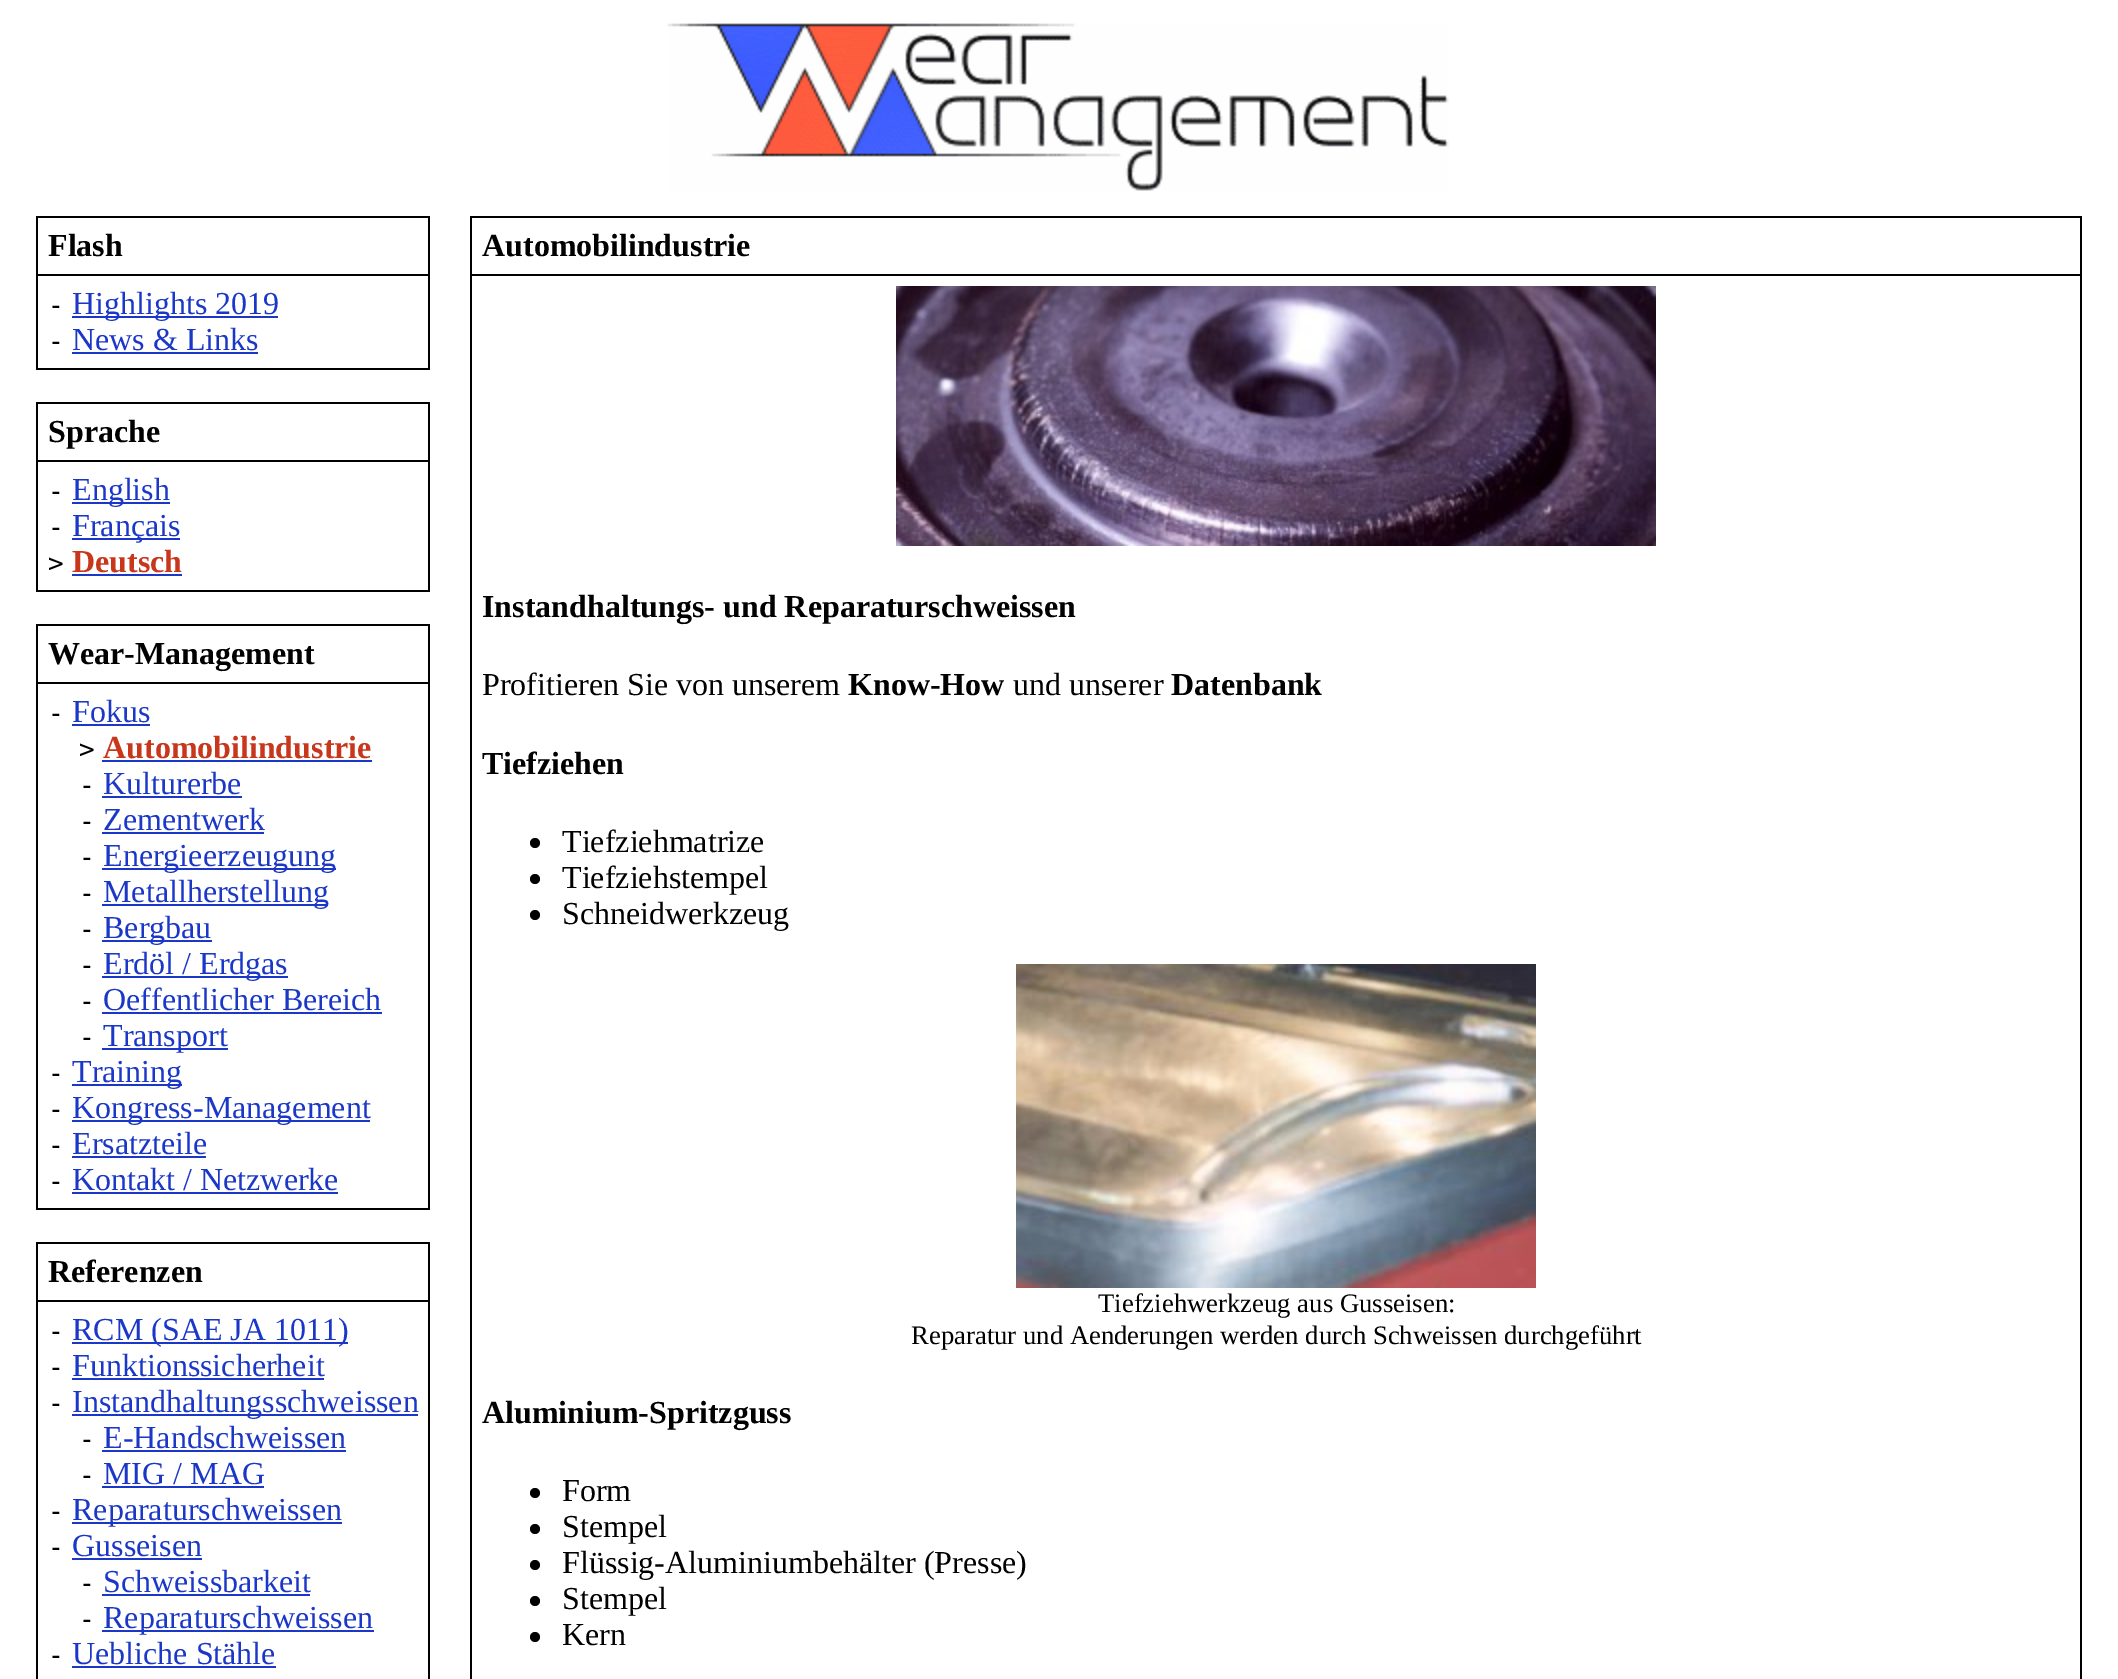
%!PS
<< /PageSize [2118 1679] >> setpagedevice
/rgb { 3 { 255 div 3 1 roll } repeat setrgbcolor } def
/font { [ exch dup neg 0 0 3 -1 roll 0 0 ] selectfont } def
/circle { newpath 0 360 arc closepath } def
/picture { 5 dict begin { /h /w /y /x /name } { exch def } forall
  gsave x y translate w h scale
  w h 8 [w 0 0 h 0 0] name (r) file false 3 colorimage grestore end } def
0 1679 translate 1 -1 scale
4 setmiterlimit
255 255 255 rgb
0 0 2118 1679 rectfill
(img/1.rgb) 667 23 782 168 picture
[
  [36 216 394 154 0 0 0]
  [38 218 390 56 255 255 255]
  [38 276 390 92 255 255 255]
  [72 316 206 2 27 55 200]
  [72 352 186 2 27 55 200]
  [36 402 394 190 0 0 0]
  [38 404 390 56 255 255 255]
  [38 462 390 128 255 255 255]
  [72 502 98 2 27 55 200]
  [72 538 108 2 27 55 200]
  [72 574 110 2 27 55 200]
  [36 624 394 586 0 0 0]
  [38 626 390 56 255 255 255]
  [38 684 390 524 255 255 255]
  [72 724 78 2 27 55 200]
  [102 760 270 2 27 55 200]
  [102 796 140 2 27 55 200]
  [102 832 162 2 27 55 200]
  [102 868 234 2 27 55 200]
  [102 904 226 2 27 55 200]
  [102 940 110 2 27 55 200]
  [102 976 186 2 27 55 200]
  [102 1012 280 2 27 55 200]
  [102 1048 126 2 27 55 200]
  [72 1084 110 2 27 55 200]
  [72 1120 298 2 27 55 200]
  [72 1156 134 2 27 55 200]
  [72 1192 266 2 27 55 200]
  [36 1242 394 437 0 0 0]
  [38 1244 390 56 255 255 255]
  [38 1302 390 377 255 255 255]
  [72 1342 276 2 27 55 200]
  [72 1378 252 2 27 55 200]
  [72 1414 346 2 27 55 200]
  [102 1450 244 2 27 55 200]
  [102 1486 162 2 27 55 200]
  [72 1522 270 2 27 55 200]
  [72 1558 130 2 27 55 200]
  [102 1594 208 2 27 55 200]
  [102 1630 272 2 27 55 200]
  [72 1666 204 2 27 55 200]
  [470 216 1612 1463 0 0 0]
  [472 218 1608 56 255 255 255]
  [472 276 1608 1403 255 255 255]
] { aload pop rgb rectfill } forall
(img/2.rgb) 896 286 760 260 picture
0 0 0 rgb
535 843 5 circle fill
535 879 5 circle fill
535 915 5 circle fill
(img/3.rgb) 1016 964 520 324 picture
535 1493 5 circle fill
535 1529 5 circle fill
535 1565 5 circle fill
535 1601 5 circle fill
535 1637 5 circle fill
/LiberationSerif-Bold 32 font
48 256 moveto (Flash) show
/DejaVuSansMono-Regular 26 font
48 314 moveto (-) show
/LiberationSerif-Regular 32 font
27 55 200 rgb
72 314 moveto (Highlights 2019) show
/DejaVuSansMono-Regular 26 font
0 0 0 rgb
48 350 moveto (-) show
/LiberationSerif-Regular 32 font
27 55 200 rgb
72 350 moveto (News & Links) show
/LiberationSerif-Bold 32 font
0 0 0 rgb
48 442 moveto (Sprache) show
/DejaVuSansMono-Regular 26 font
48 500 moveto (-) show
/LiberationSerif-Regular 32 font
27 55 200 rgb
72 500 moveto (English) show
/DejaVuSansMono-Regular 26 font
0 0 0 rgb
48 536 moveto (-) show
/LiberationSerif-Regular 32 font
27 55 200 rgb
72 536 moveto (Français) show
/DejaVuSansMono-Regular 26 font
0 0 0 rgb
48 572 moveto (>) show
/LiberationSerif-Bold 32 font
200 55 27 rgb
72 572 moveto (Deutsch) show
0 0 0 rgb
48 664 moveto (Wear-Management) show
/DejaVuSansMono-Regular 26 font
48 722 moveto (-) show
/LiberationSerif-Regular 32 font
27 55 200 rgb
72 722 moveto (Fokus) show
/DejaVuSansMono-Regular 26 font
0 0 0 rgb
79 758 moveto (>) show
/LiberationSerif-Bold 32 font
200 55 27 rgb
103 758 moveto (Automobilindustrie) show
/DejaVuSansMono-Regular 26 font
0 0 0 rgb
79 794 moveto (-) show
/LiberationSerif-Regular 32 font
27 55 200 rgb
103 794 moveto (Kulturerbe) show
/DejaVuSansMono-Regular 26 font
0 0 0 rgb
79 830 moveto (-) show
/LiberationSerif-Regular 32 font
27 55 200 rgb
103 830 moveto (Zementwerk) show
/DejaVuSansMono-Regular 26 font
0 0 0 rgb
79 866 moveto (-) show
/LiberationSerif-Regular 32 font
27 55 200 rgb
103 866 moveto (Energieerzeugung) show
/DejaVuSansMono-Regular 26 font
0 0 0 rgb
79 902 moveto (-) show
/LiberationSerif-Regular 32 font
27 55 200 rgb
103 902 moveto (Metallherstellung) show
/DejaVuSansMono-Regular 26 font
0 0 0 rgb
79 938 moveto (-) show
/LiberationSerif-Regular 32 font
27 55 200 rgb
103 938 moveto (Bergbau) show
/DejaVuSansMono-Regular 26 font
0 0 0 rgb
79 974 moveto (-) show
/LiberationSerif-Regular 32 font
27 55 200 rgb
103 974 moveto (Erdöl / Erdgas) show
/DejaVuSansMono-Regular 26 font
0 0 0 rgb
79 1010 moveto (-) show
/LiberationSerif-Regular 32 font
27 55 200 rgb
103 1010 moveto (Oeffentlicher Bereich) show
/DejaVuSansMono-Regular 26 font
0 0 0 rgb
79 1046 moveto (-) show
/LiberationSerif-Regular 32 font
27 55 200 rgb
103 1046 moveto (Transport) show
/DejaVuSansMono-Regular 26 font
0 0 0 rgb
48 1082 moveto (-) show
/LiberationSerif-Regular 32 font
27 55 200 rgb
72 1082 moveto (Training) show
/DejaVuSansMono-Regular 26 font
0 0 0 rgb
48 1118 moveto (-) show
/LiberationSerif-Regular 32 font
27 55 200 rgb
72 1118 moveto (Kongress-Management) show
/DejaVuSansMono-Regular 26 font
0 0 0 rgb
48 1154 moveto (-) show
/LiberationSerif-Regular 32 font
27 55 200 rgb
72 1154 moveto (Ersatzteile) show
/DejaVuSansMono-Regular 26 font
0 0 0 rgb
48 1190 moveto (-) show
/LiberationSerif-Regular 32 font
27 55 200 rgb
72 1190 moveto (Kontakt / Netzwerke) show
/LiberationSerif-Bold 32 font
0 0 0 rgb
48 1282 moveto (Referenzen) show
/DejaVuSansMono-Regular 26 font
48 1340 moveto (-) show
/LiberationSerif-Regular 32 font
27 55 200 rgb
72 1340 moveto (RCM \(SAE JA 1011\)) show
/DejaVuSansMono-Regular 26 font
0 0 0 rgb
48 1376 moveto (-) show
/LiberationSerif-Regular 32 font
27 55 200 rgb
72 1376 moveto (Funktionssicherheit) show
/DejaVuSansMono-Regular 26 font
0 0 0 rgb
48 1412 moveto (-) show
/LiberationSerif-Regular 32 font
27 55 200 rgb
72 1412 moveto (Instandhaltungsschweissen) show
/DejaVuSansMono-Regular 26 font
0 0 0 rgb
79 1448 moveto (-) show
/LiberationSerif-Regular 32 font
27 55 200 rgb
103 1448 moveto (E-Handschweissen) show
/DejaVuSansMono-Regular 26 font
0 0 0 rgb
79 1484 moveto (-) show
/LiberationSerif-Regular 32 font
27 55 200 rgb
103 1484 moveto (MIG / MAG) show
/DejaVuSansMono-Regular 26 font
0 0 0 rgb
48 1520 moveto (-) show
/LiberationSerif-Regular 32 font
27 55 200 rgb
72 1520 moveto (Reparaturschweissen) show
/DejaVuSansMono-Regular 26 font
0 0 0 rgb
48 1556 moveto (-) show
/LiberationSerif-Regular 32 font
27 55 200 rgb
72 1556 moveto (Gusseisen) show
/DejaVuSansMono-Regular 26 font
0 0 0 rgb
79 1592 moveto (-) show
/LiberationSerif-Regular 32 font
27 55 200 rgb
103 1592 moveto (Schweissbarkeit) show
/DejaVuSansMono-Regular 26 font
0 0 0 rgb
79 1628 moveto (-) show
/LiberationSerif-Regular 32 font
27 55 200 rgb
103 1628 moveto (Reparaturschweissen) show
/DejaVuSansMono-Regular 26 font
0 0 0 rgb
48 1664 moveto (-) show
/LiberationSerif-Regular 32 font
27 55 200 rgb
72 1664 moveto (Uebliche Stähle) show
/LiberationSerif-Bold 32 font
0 0 0 rgb
482 256 moveto (Automobilindustrie) show
482 617 moveto (Instandhaltungs- und Reparaturschweissen) show
/LiberationSerif-Regular 32 font
482 695 moveto (Profitieren Sie von unserem) show
/LiberationSerif-Bold 32 font
848 695 moveto (Know-How) show
/LiberationSerif-Regular 32 font
1013 695 moveto (und unserer) show
/LiberationSerif-Bold 32 font
1171 695 moveto (Datenbank) show
482 774 moveto (Tiefziehen) show
/LiberationSerif-Regular 32 font
[
  [(Tiefziehmatrize) 562 852]
  [(Tiefziehstempel) 562 888]
  [(Schneidwerkzeug) 562 924]
] { aload pop moveto show } forall
/LiberationSerif-Regular 26.7 font
1098 1312 moveto (Tiefziehwerkzeug aus Gusseisen:) show
911 1344 moveto (Reparatur und Aenderungen werden durch Schweissen durchgeführt) show
/LiberationSerif-Bold 32 font
482 1423 moveto (Aluminium-Spritzguss) show
/LiberationSerif-Regular 32 font
[
  [(Form) 562 1501]
  [(Stempel) 562 1537]
  [(Flüssig-Aluminiumbehälter \(Presse\)) 562 1573]
  [(Stempel) 562 1609]
  [(Kern) 562 1645]
] { aload pop moveto show } forall
showpage
